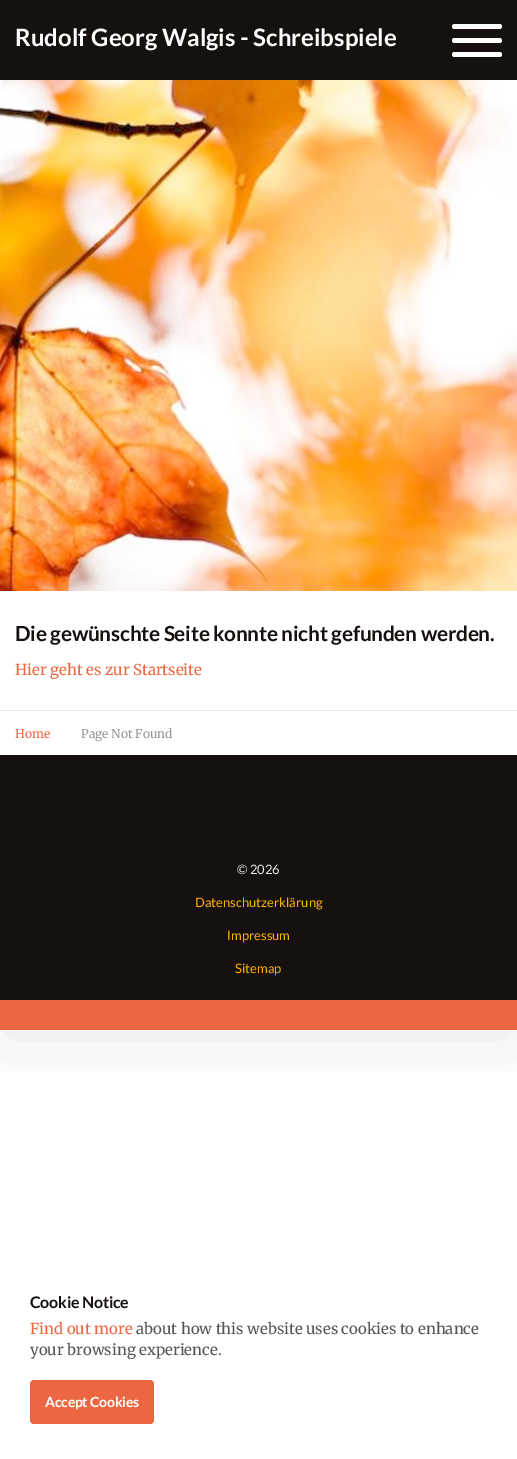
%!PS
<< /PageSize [517 1459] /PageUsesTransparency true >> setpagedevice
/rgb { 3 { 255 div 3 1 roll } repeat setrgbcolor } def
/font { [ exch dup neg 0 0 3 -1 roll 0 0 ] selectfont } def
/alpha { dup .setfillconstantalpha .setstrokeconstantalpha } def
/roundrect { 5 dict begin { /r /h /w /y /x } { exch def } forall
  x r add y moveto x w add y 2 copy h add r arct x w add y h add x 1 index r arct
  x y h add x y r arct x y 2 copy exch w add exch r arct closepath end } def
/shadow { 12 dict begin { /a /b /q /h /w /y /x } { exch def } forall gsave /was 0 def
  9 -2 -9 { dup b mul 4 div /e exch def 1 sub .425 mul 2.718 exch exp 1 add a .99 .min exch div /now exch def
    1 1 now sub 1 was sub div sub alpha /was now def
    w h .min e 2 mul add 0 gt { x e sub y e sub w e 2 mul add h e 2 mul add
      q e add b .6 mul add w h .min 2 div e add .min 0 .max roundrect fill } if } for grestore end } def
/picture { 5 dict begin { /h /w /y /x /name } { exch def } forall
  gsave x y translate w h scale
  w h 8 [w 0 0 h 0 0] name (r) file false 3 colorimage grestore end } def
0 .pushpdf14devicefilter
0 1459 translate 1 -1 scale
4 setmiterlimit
255 255 255 rgb
0 0 517 1459 rectfill
gsave
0 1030 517 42 rectclip
0 0 0 rgb
0 80 517 950 0 50 0.1 shadow
grestore
22 16 15 rgb
0 0 517 80 rectfill
255 255 255 rgb
452 38 50 5 2.5 roundrect fill
452 24 50 5 2.5 roundrect fill
452 52 50 5 2.5 roundrect fill
(img/1.rgb) 0 80 517 511 picture
[
  [0 710 517 1 232 229 227]
  [0 755 517 245 22 16 15]
  [0 1000 517 30 236 102 66]
] { aload pop rgb rectfill } forall
30 1380 124 44 4 roundrect fill
/Lato-Bold 24 font
255 255 255 rgb
15 46 moveto (Rudolf Georg Walgis - Schreibspiele) show
/Lato-Bold 20.8 font
22 16 15 rgb
15 641 moveto -0.25 0 (Die gewünschte Seite konnte nicht gefunden werden.) ashow
/Merriweather-Regular 15 font
236 102 66 rgb
15 675 moveto (Hier geht es zur Startseite) show
/Merriweather-Regular 12 font
15 738 moveto (Home) show
149 149 149 rgb
81 738 moveto (Page Not Found) show
/Lato-Regular 13 font
232 229 227 rgb
237 874 moveto (© 2026) show
255 180 0 rgb
[
  [(Datenschutzerklärung) 195 907]
  [(Impressum) 227 940]
  [(Sitemap) 235 973]
] { aload pop moveto show } forall
/Lato-Bold 16 font
22 16 15 rgb
30 1308 moveto -0.25 0 (Cookie Notice) ashow
/Merriweather-Regular 15 font
236 102 66 rgb
30 1334 moveto (Find out more) show
85 85 85 rgb
136 1334 moveto (about how this website uses cookies to enhance) show
30 1355 moveto (your browsing experience.) show
/Lato-Bold 14 font
255 255 255 rgb
45 1407 moveto -0.25 0 (Accept Cookies) ashow
.poppdf14devicefilter showpage
